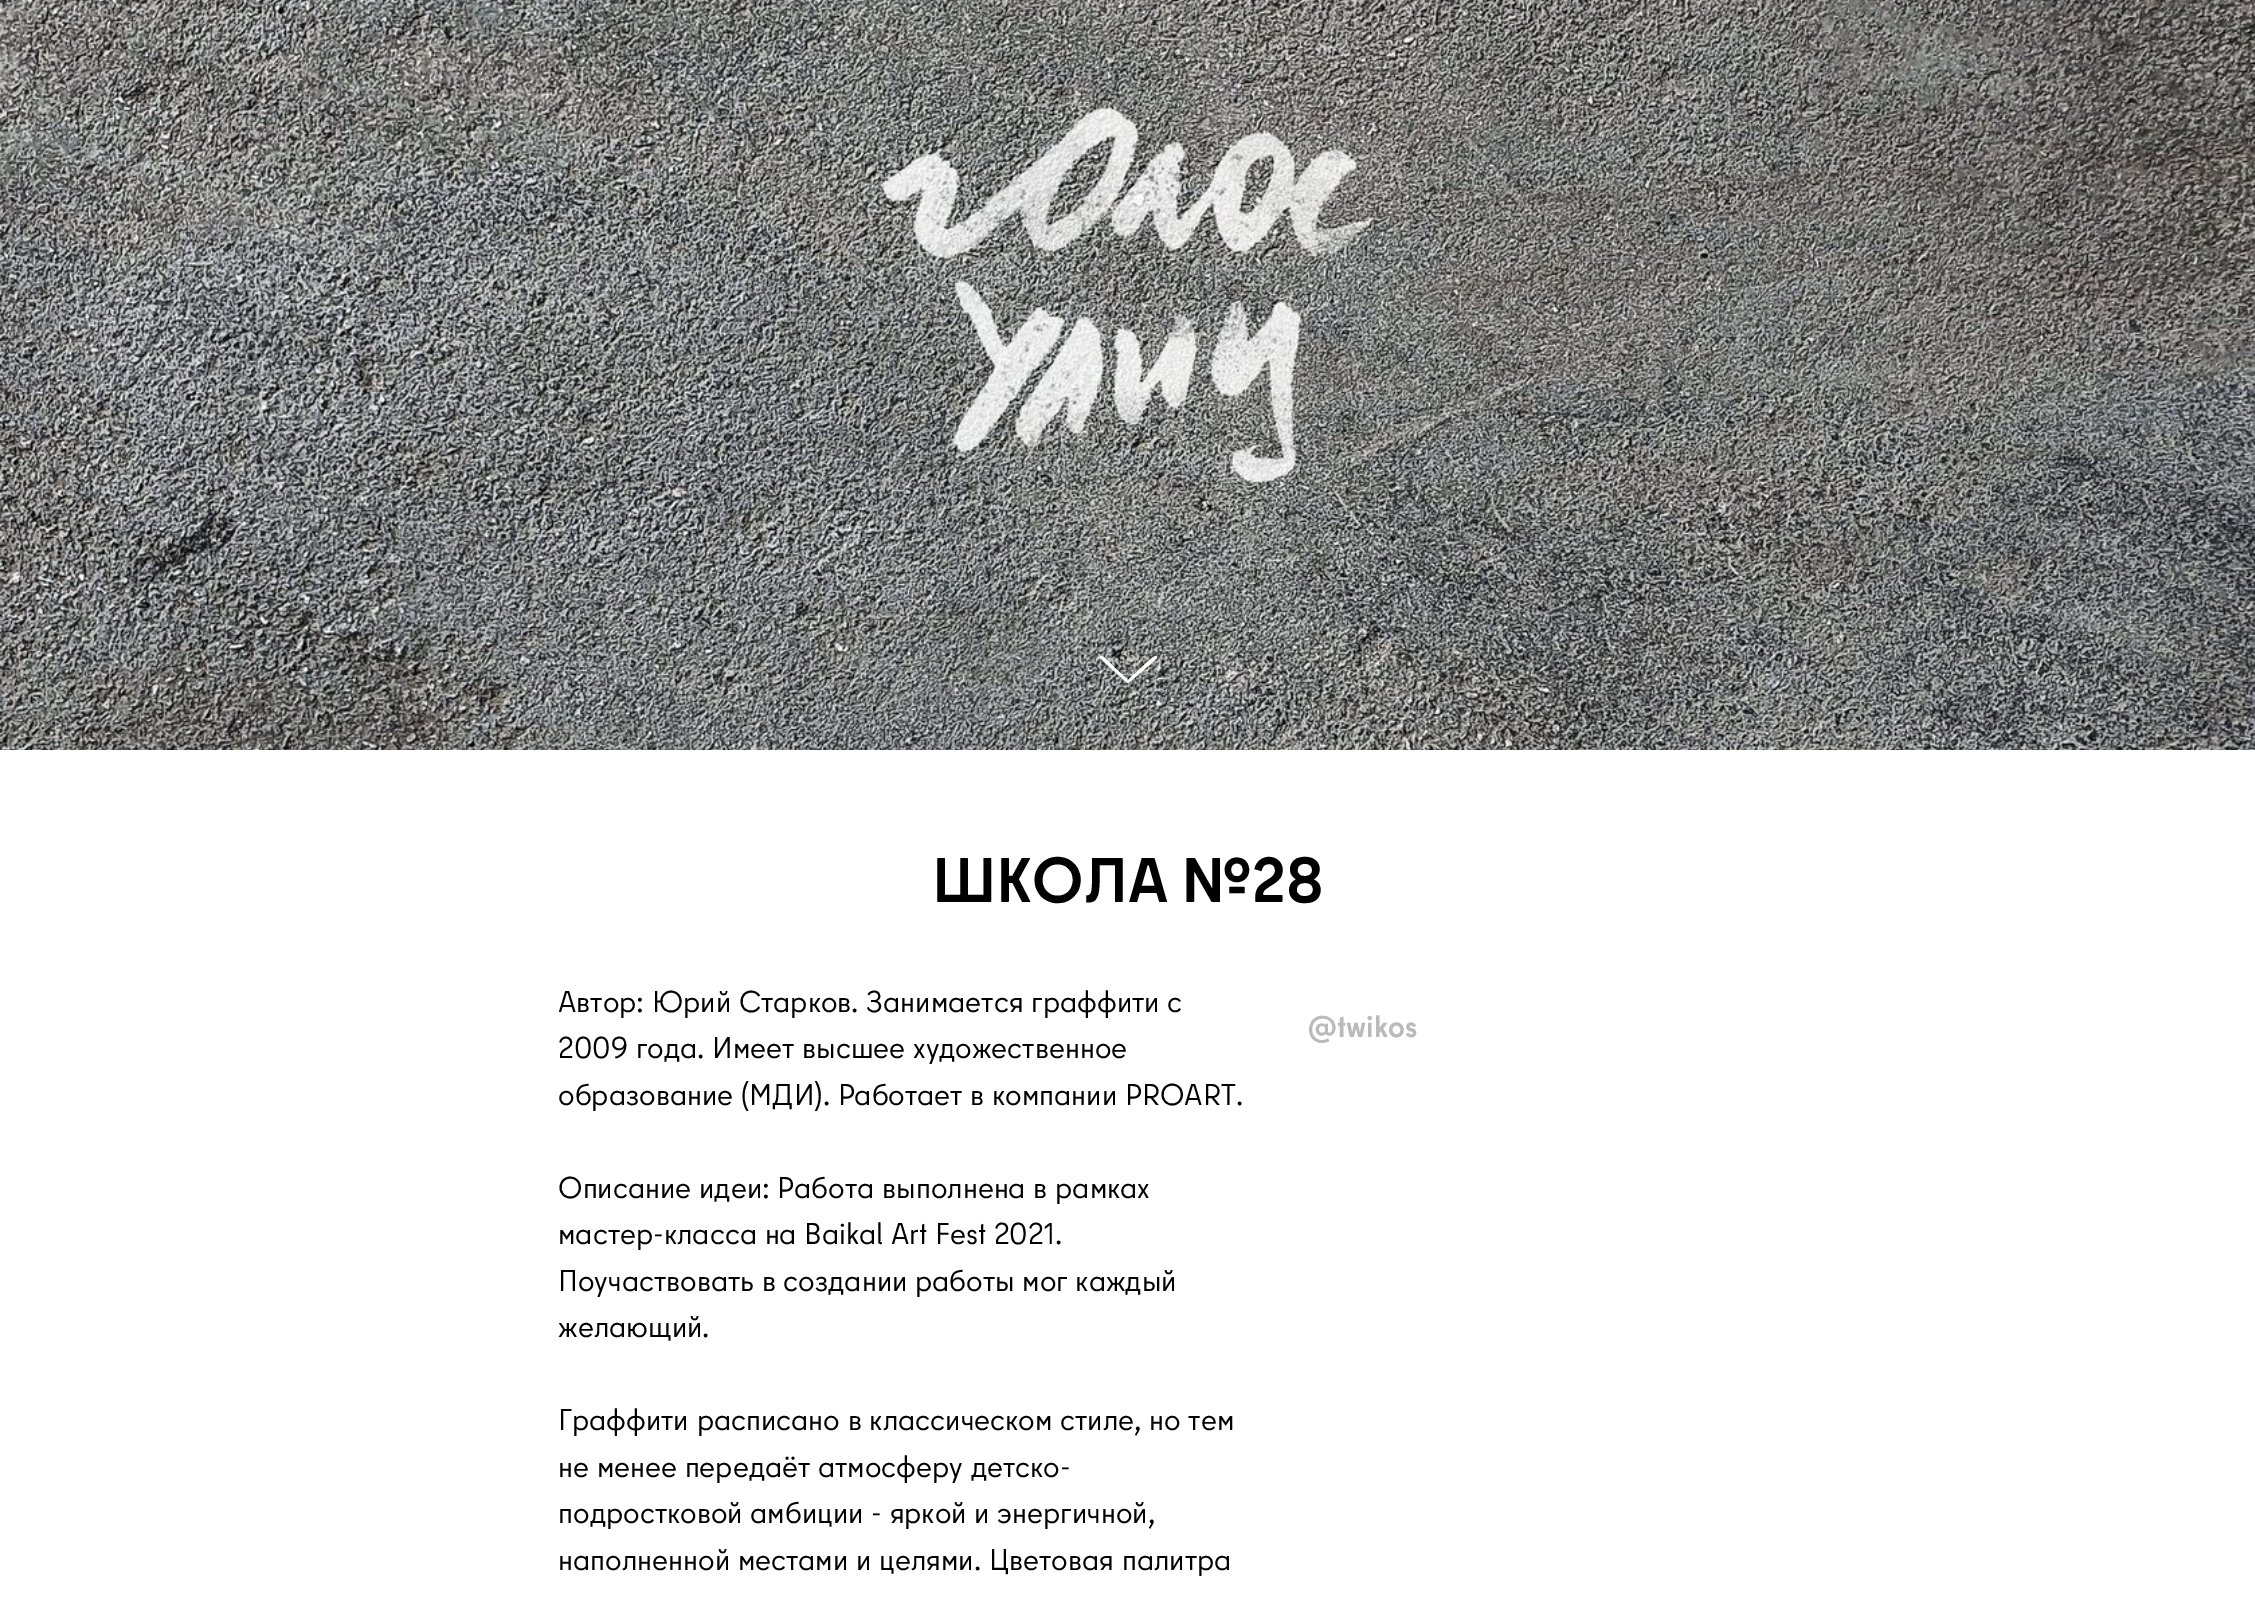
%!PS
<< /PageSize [2255 1601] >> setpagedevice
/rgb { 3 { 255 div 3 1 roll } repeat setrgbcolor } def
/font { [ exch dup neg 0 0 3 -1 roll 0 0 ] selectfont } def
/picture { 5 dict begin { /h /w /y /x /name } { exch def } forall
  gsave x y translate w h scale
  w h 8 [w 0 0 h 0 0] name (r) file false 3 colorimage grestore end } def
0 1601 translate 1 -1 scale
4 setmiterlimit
255 255 255 rgb
0 0 2255 1601 rectfill
(img/1.rgb) 0 0 2255 750 picture
1128 683 moveto 1127 683 1103 661 1100 658 curveto 1099 657 1100 656 1101 656 curveto 1103 655 1113 666 1115 668 curveto 1128 680 lineto 1141 668 lineto 1143 666 1154 655 1156 656 curveto 1157 656 1157 657 1157 658 curveto 1155 660 1129 683 1128 683 curveto closepath fill
/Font-Bold 63 font
0 0 0 rgb
932 902 moveto (ШКОЛА №28) show
/Font-Regular 30 font
[
  [(Автор: Юрий Старков. Занимается граффити с) 558 1012]
  [(2009 года. Имеет высшее художественное) 558 1058]
  [(образование \(МДИ\). Работает в компании PROART.) 558 1105]
  [(Описание идеи: Работа выполнена в рамках) 558 1198]
  [(мастер-класса на Baikal Art Fest 2021.) 558 1244]
  [(Поучаствовать в создании работы мог каждый) 558 1291]
  [(желающий.) 558 1337]
  [(Граффити расписано в классическом стиле, но тем) 558 1430]
  [(не менее передаёт атмосферу детско-) 558 1477]
  [(подростковой амбиции - яркой и энергичной,) 558 1523]
  [(наполненной местами и целями. Цветовая палитра) 558 1570]
] { aload pop moveto show } forall
/Font-Bold 30 font
186 186 186 rgb
1308 1037 moveto (@twikos) show
showpage
